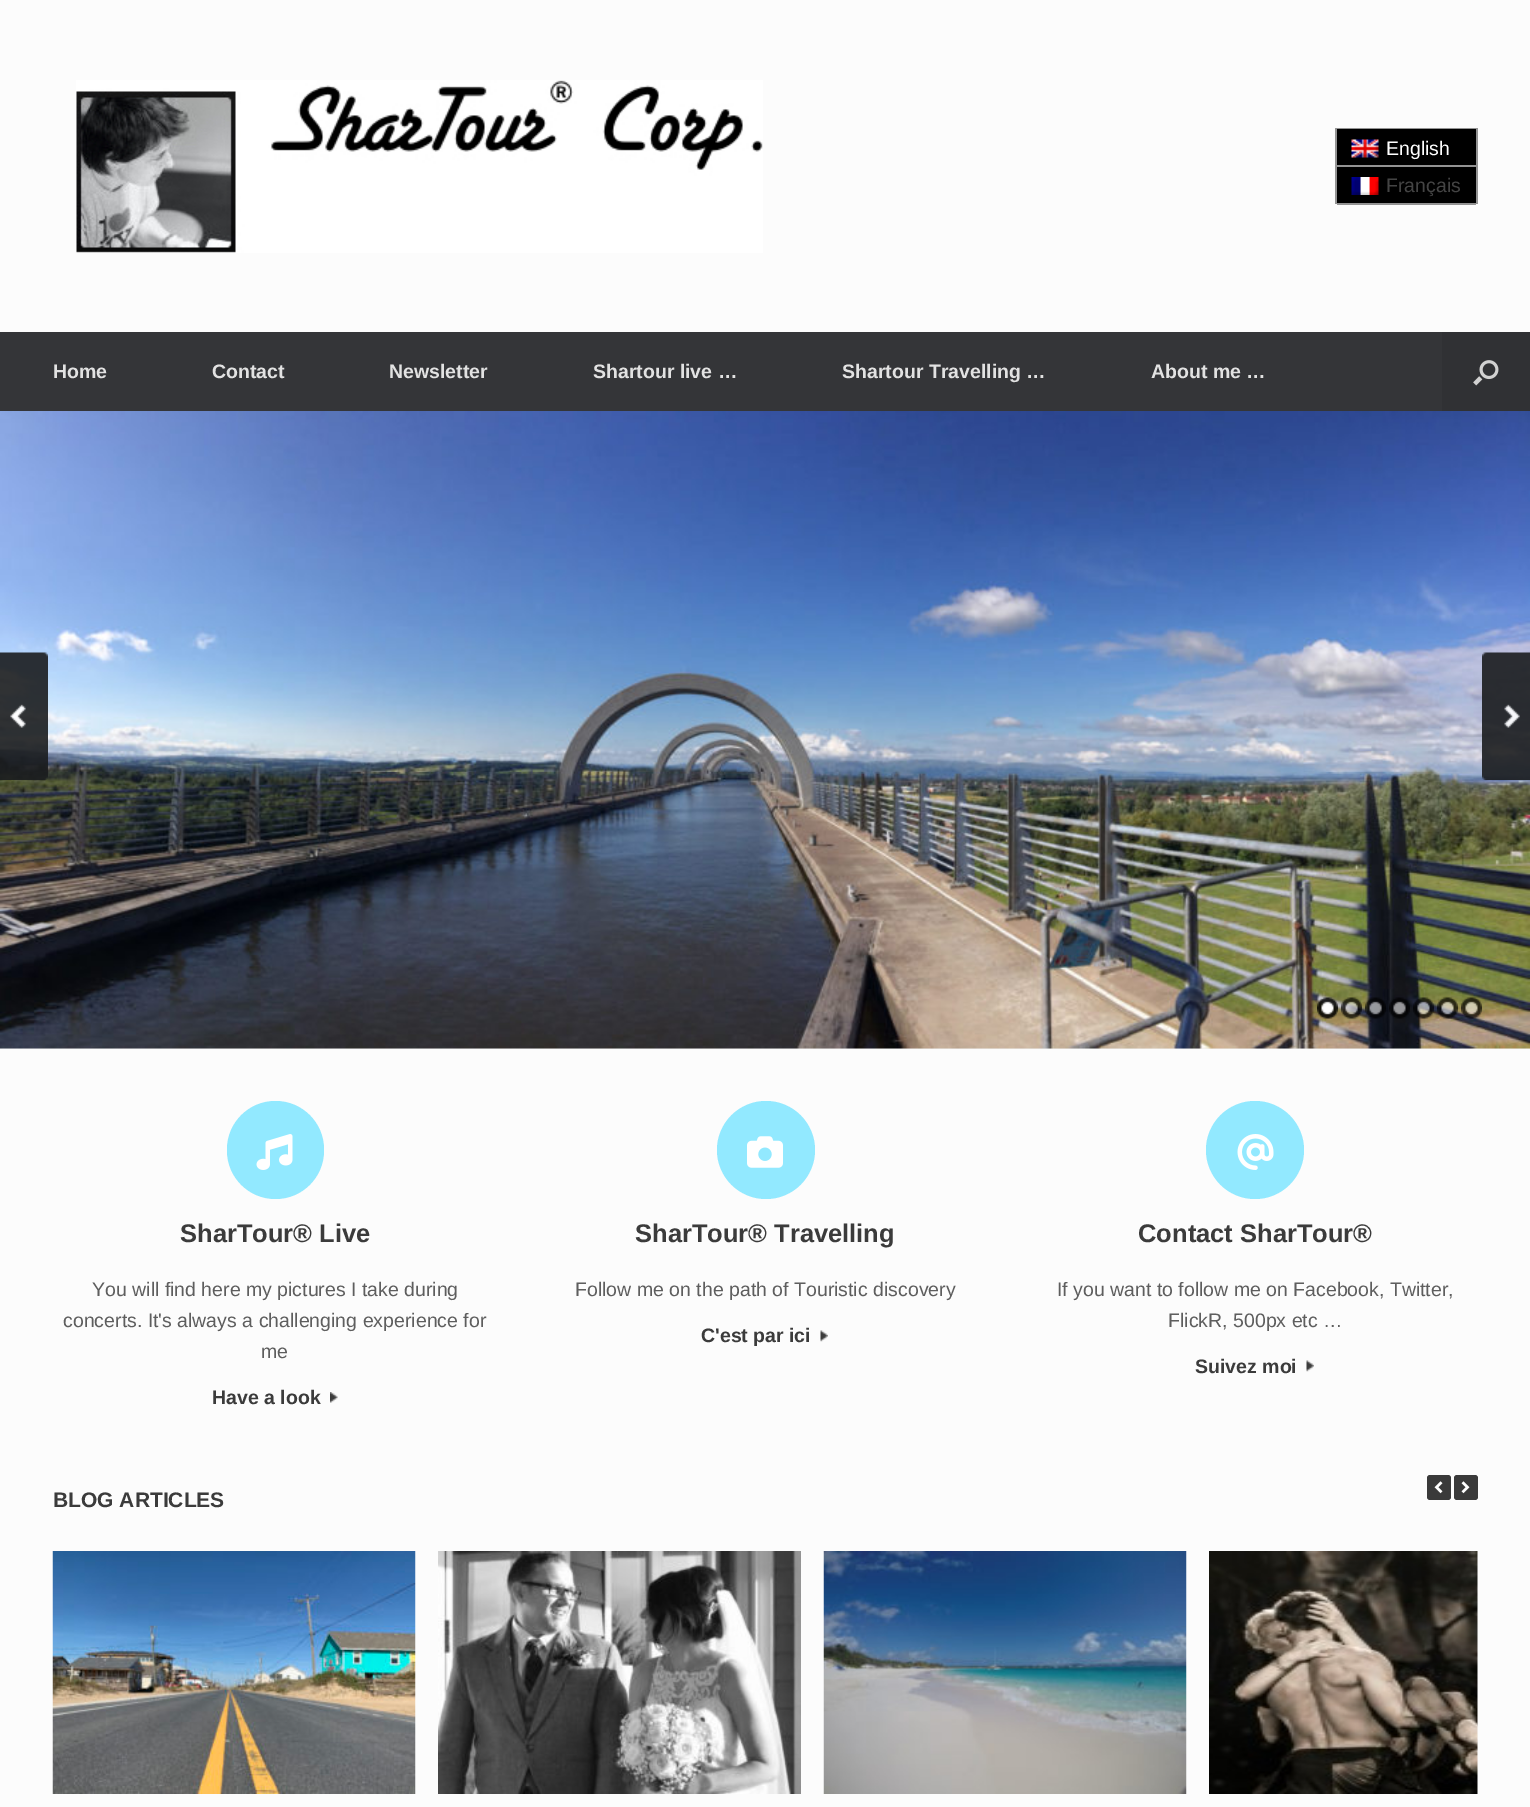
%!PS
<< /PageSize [1530 1807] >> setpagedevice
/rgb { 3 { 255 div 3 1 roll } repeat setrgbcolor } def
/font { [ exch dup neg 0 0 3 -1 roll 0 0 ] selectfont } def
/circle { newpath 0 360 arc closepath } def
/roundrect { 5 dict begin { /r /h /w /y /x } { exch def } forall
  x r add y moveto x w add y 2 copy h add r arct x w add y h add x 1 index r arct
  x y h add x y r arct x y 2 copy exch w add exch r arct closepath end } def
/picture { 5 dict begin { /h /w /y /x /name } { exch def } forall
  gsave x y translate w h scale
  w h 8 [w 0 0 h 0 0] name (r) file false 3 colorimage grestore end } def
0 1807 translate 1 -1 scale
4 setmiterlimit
252 252 252 rgb
0 0 1530 1807 rectfill
(img/1.rgb) 76 80 687 173 picture
[
  [1335 128 143 1 147 147 147]
  [1476 128 2 76 147 147 147]
  [1335 128 2 76 147 147 147]
  [1337 129 139 36 0 0 0]
  [1337 165 139 2 147 147 147]
] { aload pop rgb rectfill } forall
(img/2.rgb) 1351 139 28 19 picture
0 0 0 rgb
1337 167 139 36 rectfill
147 147 147 rgb
1337 203 139 2 rectfill
(img/3.rgb) 1351 177 28 18 picture
52 53 56 rgb
0 332 1442 79 rectfill
48 49 52 rgb
1442 332 88 79 rectfill
(img/4.rgb) 1473 360 26 26 picture
238 238 238 rgb
0 1048 1530 1 rectfill
(img/5.rgb) 0 411 1530 638 picture
(img/6.rgb) 0 652 48 128 picture
(img/7.rgb) 1482 652 48 128 picture
(img/8.rgb) 1317 997 21 22 picture
(img/9.rgb) 1341 997 21 22 picture
(img/10.rgb) 1365 997 21 22 picture
(img/11.rgb) 1389 997 21 22 picture
(img/12.rgb) 1413 997 21 22 picture
(img/13.rgb) 1437 997 21 22 picture
(img/14.rgb) 1461 997 21 22 picture
146 233 255 rgb
227 1101 97 98 48.5 roundrect fill
(img/15.rgb) 256 1134 37 36 picture
(img/16.rgb) 330 1392 8 11 picture
766 1150 49 circle fill
(img/17.rgb) 747 1136 36 32 picture
(img/18.rgb) 820 1330 8 12 picture
1255 1150 49 circle fill
(img/19.rgb) 1237 1134 37 36 picture
(img/20.rgb) 1306 1360 8 12 picture
58 58 58 rgb
1427 1475 24 25 3 roundrect fill
(img/21.rgb) 1434 1481 9 13 picture
1454 1475 24 25 3 roundrect fill
(img/22.rgb) 1461 1481 9 13 picture
(img/23.rgb) 52 1551 364 243 picture
(img/24.rgb) 438 1551 363 243 picture
(img/25.rgb) 823 1551 364 243 picture
(img/26.rgb) 1209 1551 269 243 picture
/LiberationSans-Regular 19.5 font
255 255 255 rgb
1386 155 moveto (English) show
68 68 68 rgb
1386 192 moveto (Français) show
/LiberationSans-Bold 19.5 font
226 226 226 rgb
[
  [(Home) 53 378]
  [(Contact) 212 378]
  [(Newsletter) 389 378]
  [(Shartour live …) 593 378]
  [(Shartour Travelling …) 842 378]
  [(About me …) 1151 378]
] { aload pop moveto show } forall
/LiberationSans-Bold 25.5 font
59 59 59 rgb
180 1242 moveto (SharTour® Live) show
/LiberationSans-Regular 19.5 font
94 94 94 rgb
[
  [(You will find here my pictures I take during) 92 1296]
  [(concerts. It's always a challenging experience for) 63 1327]
  [(me) 261 1358]
] { aload pop moveto show } forall
/LiberationSans-Bold 19.5 font
59 59 59 rgb
212 1404 moveto (Have a look) show
/LiberationSans-Bold 25.5 font
635 1242 moveto (SharTour® Travelling) show
/LiberationSans-Regular 19.5 font
94 94 94 rgb
575 1296 moveto (Follow me on the path of Touristic discovery) show
/LiberationSans-Bold 19.5 font
59 59 59 rgb
701 1342 moveto (C'est par ici) show
/LiberationSans-Bold 25.5 font
1138 1242 moveto (Contact SharTour®) show
/LiberationSans-Regular 19.5 font
94 94 94 rgb
1057 1296 moveto (If you want to follow me on Facebook, Twitter,) show
1168 1327 moveto (FlickR, 500px etc …) show
/LiberationSans-Bold 19.5 font
59 59 59 rgb
1195 1373 moveto (Suivez moi) show
/LiberationSans-Bold 21 font
53 1507 moveto (BLOG ARTICLES) show
showpage
